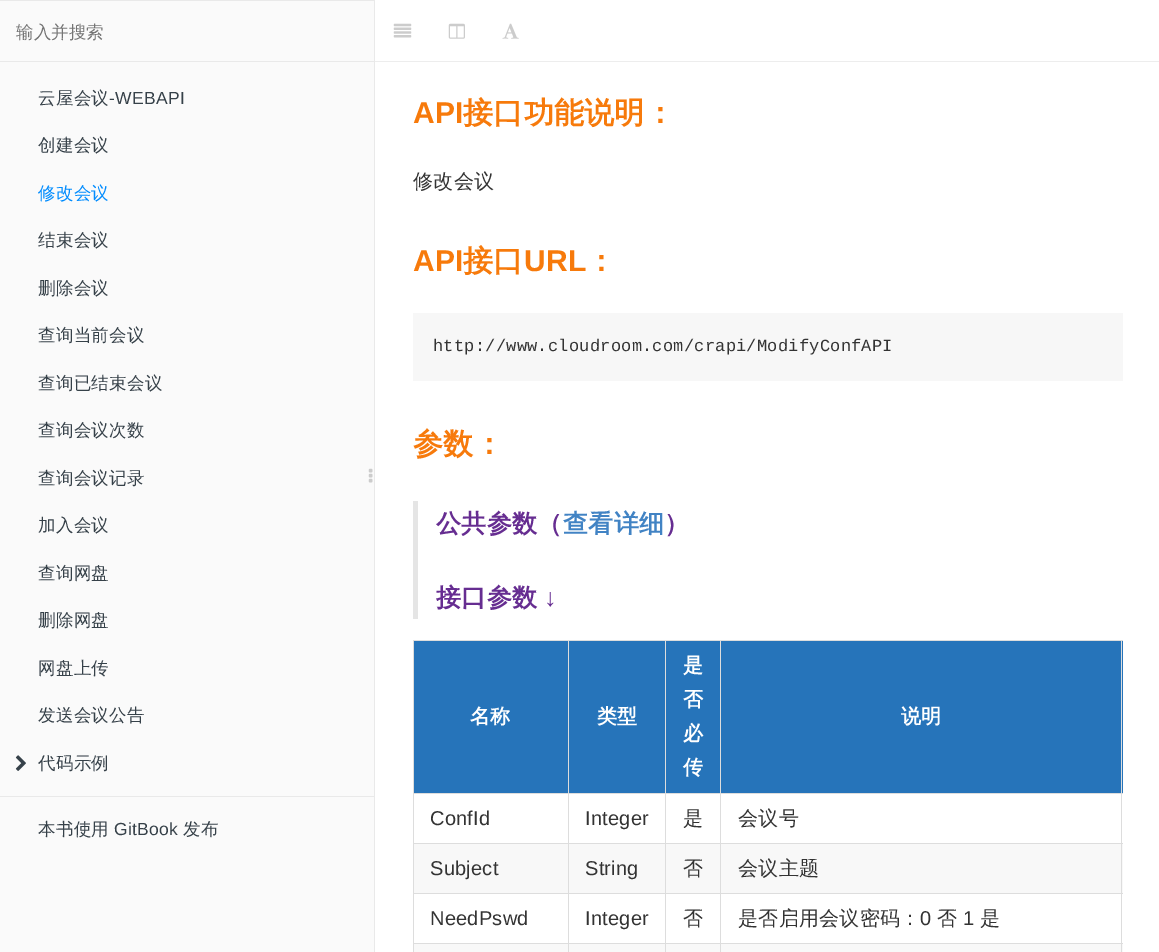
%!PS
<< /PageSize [1159 952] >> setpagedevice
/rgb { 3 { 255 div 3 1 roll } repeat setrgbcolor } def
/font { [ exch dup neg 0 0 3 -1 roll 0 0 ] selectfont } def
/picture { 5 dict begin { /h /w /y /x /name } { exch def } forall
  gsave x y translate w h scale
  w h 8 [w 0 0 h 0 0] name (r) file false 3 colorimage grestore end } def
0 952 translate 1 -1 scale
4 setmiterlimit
255 255 255 rgb
0 0 1159 952 rectfill
[
  [0 1 374 951 250 250 250]
  [374 0 1 952 233 233 233]
  [0 0 374 1 233 233 233]
  [0 61 374 1 233 233 233]
] { aload pop rgb rectfill } forall
(img/1.rgb) 15 755 11 16 picture
0 796 374 1 rectfill
(img/2.rgb) 368 468 5 15 picture
237 237 237 rgb
375 61 784 1 rectfill
(img/3.rgb) 393 23 19 15 picture
(img/4.rgb) 448 23 17 16 picture
(img/5.rgb) 502 23 17 16 picture
[
  [413 313 710 68 247 247 247]
  [413 501 5 118 229 229 229]
  [414 641 154 152 38 116 186]
  [720 640 403 1 221 221 221]
  [720 793 403 1 221 221 221]
  [720 843 403 1 221 221 221]
  [414 844 709 49 248 248 248]
  [720 893 403 1 221 221 221]
  [720 943 403 1 221 221 221]
  [414 944 709 8 248 248 248]
  [720 943 1 9 221 221 221]
  [665 943 56 1 221 221 221]
  [720 893 1 51 221 221 221]
  [665 893 56 1 221 221 221]
  [720 843 1 51 221 221 221]
  [665 843 56 1 221 221 221]
  [720 793 1 51 221 221 221]
  [665 793 56 1 221 221 221]
  [720 640 1 154 221 221 221]
  [665 640 56 1 221 221 221]
  [665 943 1 9 221 221 221]
  [568 943 98 1 221 221 221]
  [665 893 1 51 221 221 221]
  [568 893 98 1 221 221 221]
  [665 843 1 51 221 221 221]
  [568 843 98 1 221 221 221]
  [665 793 1 51 221 221 221]
  [568 793 98 1 221 221 221]
  [665 640 1 154 221 221 221]
  [568 640 98 1 221 221 221]
  [568 943 1 9 221 221 221]
  [413 943 156 1 221 221 221]
  [568 893 1 51 221 221 221]
  [413 893 156 1 221 221 221]
  [568 843 1 51 221 221 221]
  [413 843 156 1 221 221 221]
  [568 793 1 51 221 221 221]
  [413 793 156 1 221 221 221]
  [568 640 1 154 221 221 221]
  [413 640 156 1 221 221 221]
  [413 943 1 9 221 221 221]
  [413 893 1 51 221 221 221]
  [413 843 1 51 221 221 221]
  [413 793 1 51 221 221 221]
  [413 640 1 154 221 221 221]
  [569 641 96 152 38 116 186]
  [666 641 54 152 38 116 186]
  [721 641 402 152 38 116 186]
  [1121 943 1 9 221 221 221]
  [1121 893 1 51 221 221 221]
  [1121 843 1 51 221 221 221]
  [1121 793 1 51 221 221 221]
  [1121 640 1 154 221 221 221]
] { aload pop rgb rectfill } forall
/WenQuanYiZenHei-Medium 17.5 font
117 117 117 rgb
16 38 moveto (输入并搜索) show
54 65 73 rgb
38 104 moveto 0.25 0 (云屋会议) ashow
/LiberationSans-Regular 17.5 font
109 104 moveto 0.25 0 (-WEBAPI) ashow
/WenQuanYiZenHei-Medium 17.5 font
38 151 moveto 0.25 0 (创建会议) ashow
0 140 255 rgb
38 199 moveto 0.25 0 (修改会议) ashow
54 65 73 rgb
38 246 moveto 0.25 0 (结束会议) ashow
38 294 moveto 0.25 0 (删除会议) ashow
38 341 moveto 0.25 0 (查询当前会议) ashow
38 389 moveto 0.25 0 (查询已结束会议) ashow
38 436 moveto 0.25 0 (查询会议次数) ashow
38 484 moveto 0.25 0 (查询会议记录) ashow
38 531 moveto 0.25 0 (加入会议) ashow
38 579 moveto 0.25 0 (查询网盘) ashow
38 626 moveto 0.25 0 (删除网盘) ashow
38 674 moveto 0.25 0 (网盘上传) ashow
38 721 moveto 0.25 0 (发送会议公告) ashow
38 769 moveto 0.25 0 (代码示例) ashow
38 835 moveto 0.25 0 (本书使用) ashow
/LiberationSans-Regular 17.5 font
114 835 moveto 0.25 0 (GitBook) ashow
/WenQuanYiZenHei-Medium 17.5 font
183 835 moveto 0.25 0 (发布) ashow
/LiberationSans-Bold 30 font
247 122 11 rgb
413 123 moveto 0.25 0 (API) ashow
/WenQuanYiZenHei-Bold 30 font
463 123 moveto 0.25 0 (接口功能说明：) ashow
/WenQuanYiZenHei-Medium 20 font
51 51 51 rgb
413 188 moveto 0.25 0 (修改会议) ashow
/LiberationSans-Bold 30 font
247 122 11 rgb
413 271 moveto 0.25 0 (API) ashow
/WenQuanYiZenHei-Bold 30 font
463 271 moveto 0.25 0 (接口) ashow
/LiberationSans-Bold 30 font
524 271 moveto 0.25 0 (URL) ashow
/WenQuanYiZenHei-Bold 30 font
586 271 moveto 0.25 0 (：) ashow
/LiberationMono-Regular 17 font
51 51 51 rgb
433 351 moveto 0.25 0 (http://www.cloudroom.com/crapi/ModifyConfAPI) ashow
/WenQuanYiZenHei-Bold 30 font
247 122 11 rgb
413 454 moveto 0.25 0 (参数：) ashow
/WenQuanYiZenHei-Bold 25 font
102 45 145 rgb
436 532 moveto 0.25 0 (公共参数（) ashow
65 131 196 rgb
563 532 moveto 0.25 0 (查看详细) ashow
102 45 145 rgb
664 532 moveto 0.25 0 (）) ashow
436 606 moveto 0.25 0 (接口参数) ashow
/LiberationSans-Bold 25 font
544 606 moveto 0.25 0 (↓) ashow
/WenQuanYiZenHei-Bold 20 font
255 255 255 rgb
470 723 moveto 0.25 0 (名称) ashow
597 723 moveto 0.25 0 (类型) ashow
683 672 moveto 0.25 0 (是) ashow
683 706 moveto 0.25 0 (否) ashow
683 740 moveto 0.25 0 (必) ashow
683 774 moveto 0.25 0 (传) ashow
901 723 moveto 0.25 0 (说明) ashow
/LiberationSans-Regular 20 font
51 51 51 rgb
430 825 moveto 0.25 0 (ConfId) ashow
585 825 moveto 0.25 0 (Integer) ashow
/WenQuanYiZenHei-Medium 20 font
683 825 moveto 0.25 0 (是) ashow
738 825 moveto 0.25 0 (会议号) ashow
/LiberationSans-Regular 20 font
430 875 moveto 0.25 0 (Subject) ashow
585 875 moveto 0.25 0 (String) ashow
/WenQuanYiZenHei-Medium 20 font
683 875 moveto 0.25 0 (否) ashow
738 875 moveto 0.25 0 (会议主题) ashow
/LiberationSans-Regular 20 font
430 925 moveto 0.25 0 (NeedPswd) ashow
585 925 moveto 0.25 0 (Integer) ashow
/WenQuanYiZenHei-Medium 20 font
683 925 moveto 0.25 0 (否) ashow
738 925 moveto 0.25 0 (是否启用会议密码：) ashow
/LiberationSans-Regular 20 font
920 925 moveto 0.25 0 (0) ashow
/WenQuanYiZenHei-Medium 20 font
937 925 moveto 0.25 0 (否) ashow
/LiberationSans-Regular 20 font
963 925 moveto 0.25 0 (1) ashow
/WenQuanYiZenHei-Medium 20 font
980 925 moveto 0.25 0 (是) ashow
showpage
